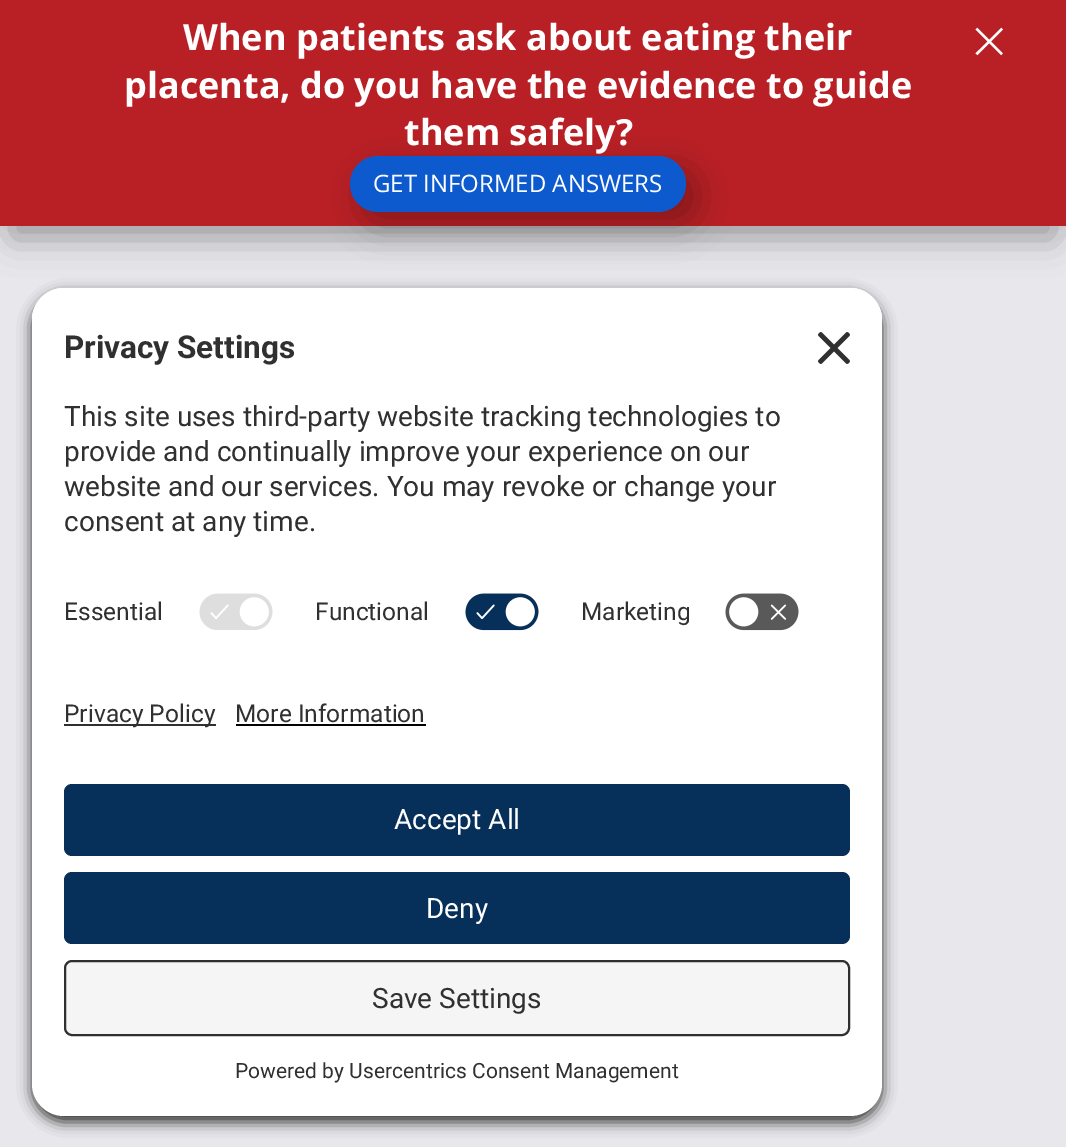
%!PS
<< /PageSize [1066 1147] /PageUsesTransparency true >> setpagedevice
/rgb { 3 { 255 div 3 1 roll } repeat setrgbcolor } def
/font { [ exch dup neg 0 0 3 -1 roll 0 0 ] selectfont } def
/alpha { dup .setfillconstantalpha .setstrokeconstantalpha } def
/roundrect { 5 dict begin { /r /h /w /y /x } { exch def } forall
  x r add y moveto x w add y 2 copy h add r arct x w add y h add x 1 index r arct
  x y h add x y r arct x y 2 copy exch w add exch r arct closepath end } def
/shadow { 12 dict begin { /a /b /q /h /w /y /x } { exch def } forall gsave /was 0 def
  9 -2 -9 { dup b mul 4 div /e exch def 1 sub .425 mul 2.718 exch exp 1 add a .99 .min exch div /now exch def
    1 1 now sub 1 was sub div sub alpha /was now def
    w h .min e 2 mul add 0 gt { x e sub y e sub w e 2 mul add h e 2 mul add
      q e add b .6 mul add w h .min 2 div e add .min 0 .max roundrect fill } if } for grestore end } def
/picture { 5 dict begin { /h /w /y /x /name } { exch def } forall
  gsave x y translate w h scale
  w h 8 [w 0 0 h 0 0] name (r) file false 3 colorimage grestore end } def
0 .pushpdf14devicefilter
0 1147 translate 1 -1 scale
4 setmiterlimit
232 231 236 rgb
0 0 1066 1147 rectfill
0 0 0 rgb
12 36 1042 176 0 18 0.3 shadow
12 36 1042 202 0 18 0.3 shadow
185 32 37 rgb
0 0 1066 226 rectfill
0 0 0 rgb
362 168 336 56 28 18 0.3 shadow
12 90 206 rgb
350 156 336 56 28 roundrect fill
0 0 0 rgb
32 294 850 828 32 7 0.8 shadow
255 255 255 rgb
64 288 moveto 850 288 lineto 867.5 288 882 302.5 882 320 curveto 882 668 lineto 32 668 lineto 32 320 lineto 32 302.5 46.5 288 64 288 curveto closepath fill
64 288 moveto 850 288 lineto 867.5 288 882 302.5 882 320 curveto 882 580 lineto 32 580 lineto 32 320 lineto 32 302.5 46.5 288 64 288 curveto closepath fill
(img/1.rgb) 818 332 32 32 picture
(img/2.rgb) 199 593 74 37 picture
(img/3.rgb) 465 593 74 38 picture
(img/4.rgb) 725 593 74 38 picture
32 668 moveto 882 668 lineto 882 1084 lineto 882 1101.5 867.5 1116 850 1116 curveto 64 1116 lineto 46.5 1116 32 1101.5 32 1084 curveto closepath fill
48 48 48 rgb
64 724 152 2 rectfill
0 0 0 rgb
236 724 190 2 rectfill
6 47 89 rgb
64 784 786 72 8 roundrect fill
64 872 786 72 8 roundrect fill
245 245 245 rgb
65 961 784 74 7 roundrect gsave fill grestore
48 48 48 rgb
2 setlinewidth
stroke
/OpenSans-Bold 36 font
255 255 255 rgb
[
  [(When patients ask about eating their) 183 50]
  [(placenta, do you have the evidence to guide) 124 98]
  [(them safely?) 404 145]
] { aload pop moveto show } forall
/OpenSans-Regular 24 font
373 192 moveto (GET INFORMED ANSWERS) show
/OpenSans-Light 64 font
971 64 moveto (×) show
/Roboto-Bold 31.5 font
48 48 48 rgb
64 358 moveto (Privacy Settings) show
/Roboto-Regular 28 font
[
  [(This site uses third-party website tracking technologies to) 64 426]
  [(provide and continually improve your experience on our) 64 461]
  [(website and our services. You may revoke or change your) 64 496]
  [(consent at any time.) 64 531]
] { aload pop moveto show } forall
/Roboto-Regular 24.5 font
[
  [(Essential) 64 620]
  [(Functional) 315 620]
  [(Marketing) 581 620]
  [(Privacy Policy) 64 722]
  [(More Information) 235 722]
] { aload pop moveto show } forall
/Roboto-Regular 28 font
255 255 255 rgb
394 829 moveto (Accept All) show
426 918 moveto (Deny) show
48 48 48 rgb
372 1008 moveto (Save Settings) show
/Roboto-Regular 21 font
235 1078 moveto (Powered by Usercentrics Consent Management) show
.poppdf14devicefilter showpage
